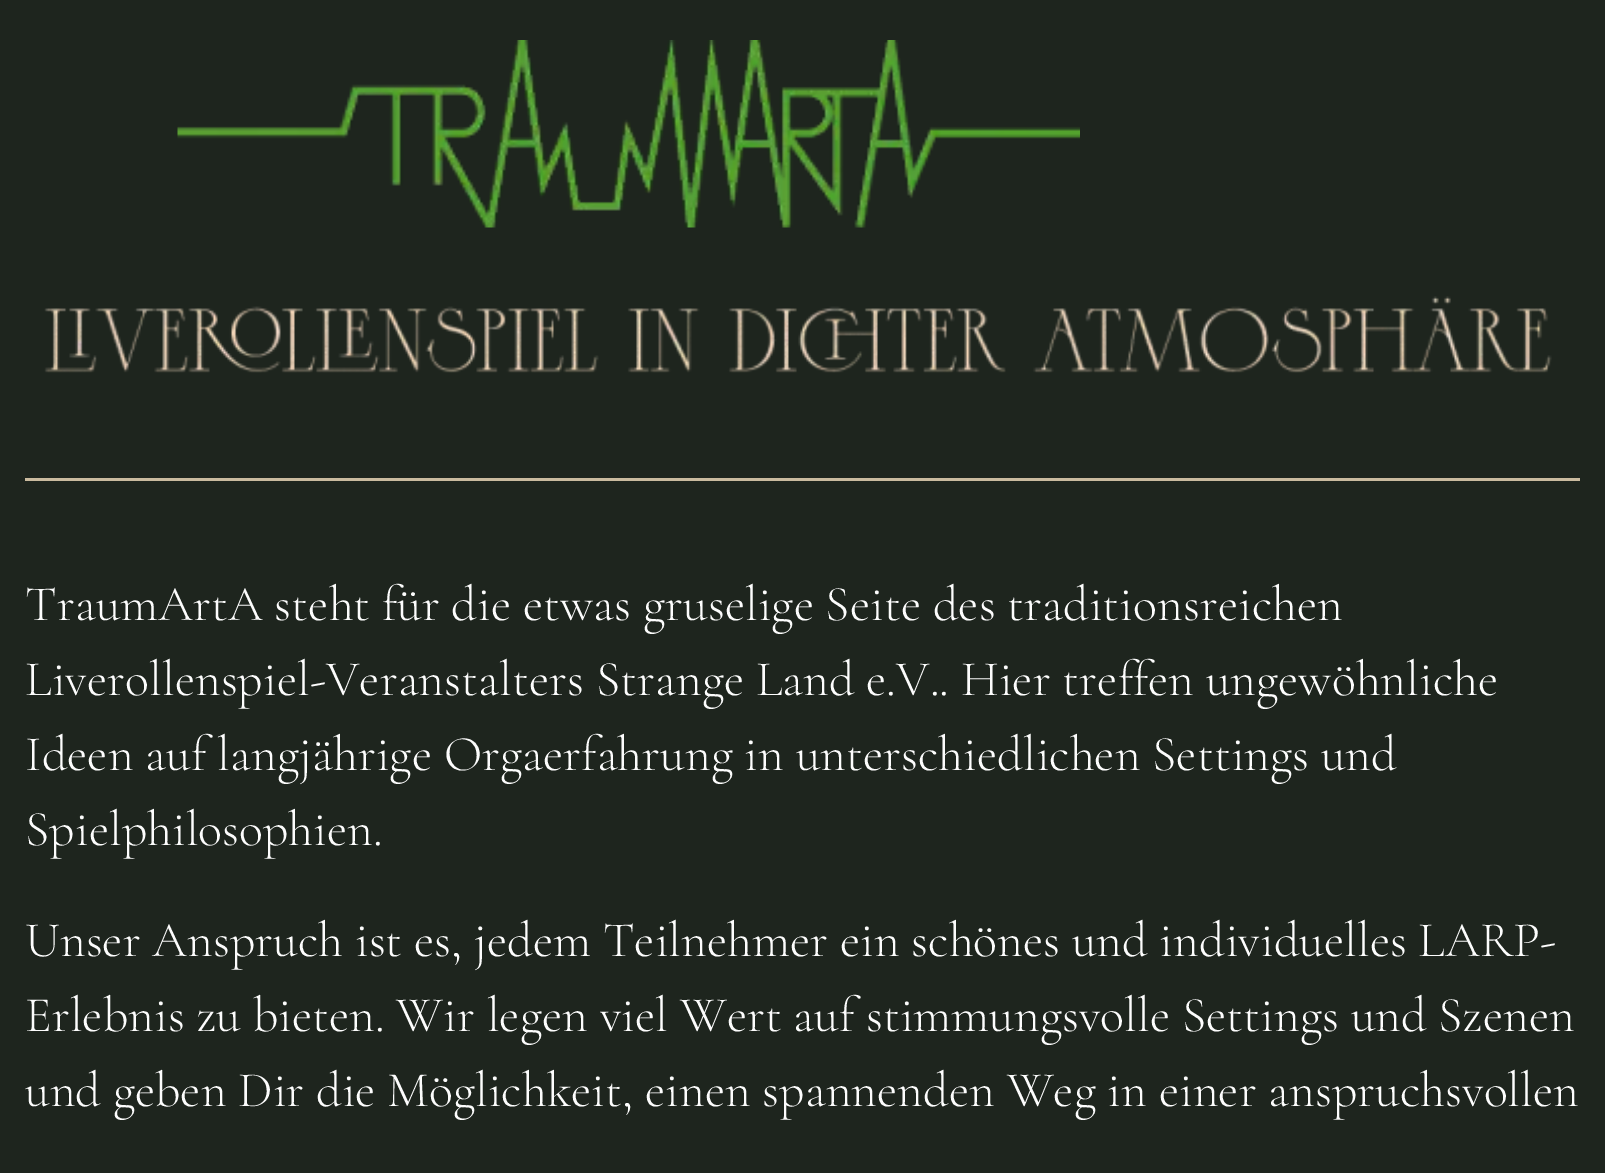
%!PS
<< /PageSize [1605 1173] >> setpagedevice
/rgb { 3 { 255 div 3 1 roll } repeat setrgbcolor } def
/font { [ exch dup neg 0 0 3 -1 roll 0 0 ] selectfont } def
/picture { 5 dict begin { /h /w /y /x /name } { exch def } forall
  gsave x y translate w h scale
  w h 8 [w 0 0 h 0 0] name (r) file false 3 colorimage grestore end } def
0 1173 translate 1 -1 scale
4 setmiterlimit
30 37 30 rgb
0 0 1605 1173 rectfill
(img/1.rgb) 177 40 903 188 picture
(img/2.rgb) 44 296 1508 77 picture
202 187 159 rgb
25 478 1555 3 rectfill
/CormorantGaramond-Light 50 font
253 253 253 rgb
[
  [(TraumArtA steht für die etwas gruselige Seite des traditionsreichen) 25 620]
  [(Liverollenspiel-Veranstalters Strange Land e.V.. Hier treffen ungewöhnliche) 25 695]
  [(Ideen auf langjährige Orgaerfahrung in unterschiedlichen Settings und) 25 770]
  [(Spielphilosophien.) 25 845]
  [(Unser Anspruch ist es, jedem Teilnehmer ein schönes und individuelles LARP-) 25 956]
  [(Erlebnis zu bieten. Wir legen viel Wert auf stimmungsvolle Settings und Szenen) 25 1031]
  [(und geben Dir die Möglichkeit, einen spannenden Weg in einer anspruchsvollen) 25 1106]
] { aload pop moveto show } forall
showpage
